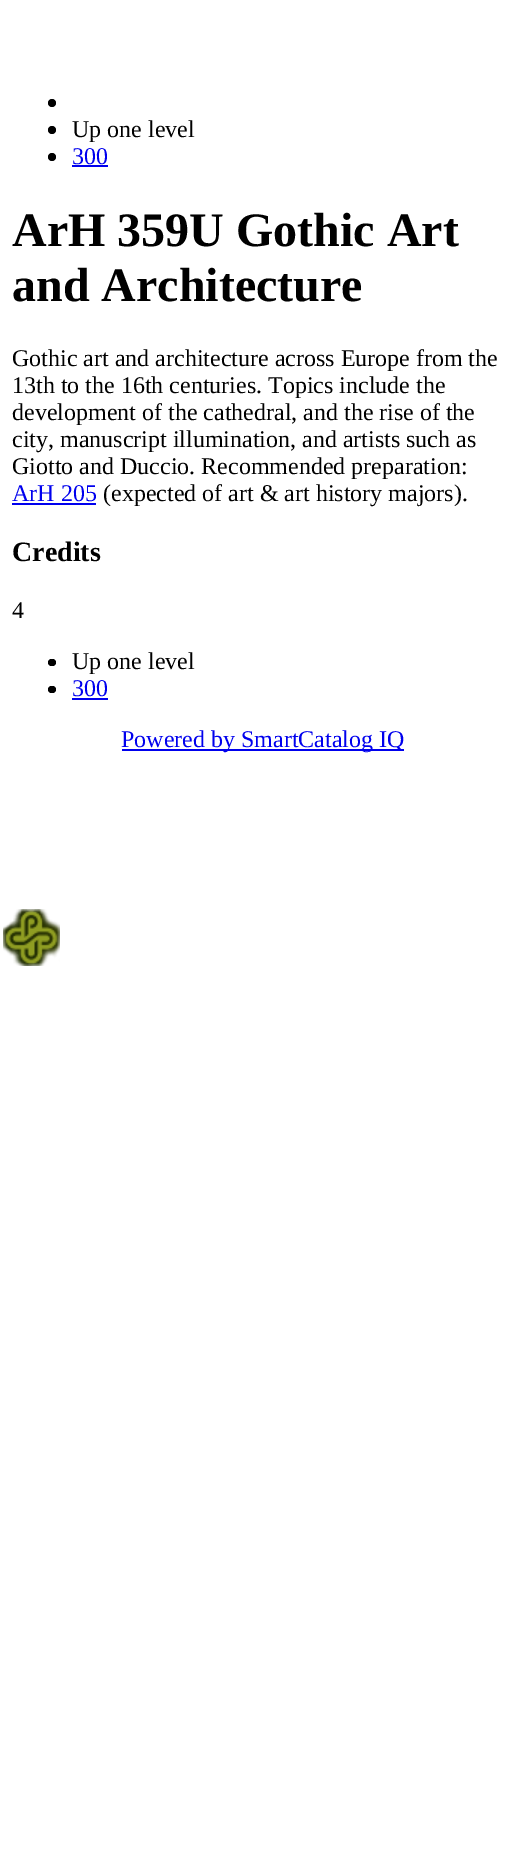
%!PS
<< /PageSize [525 1864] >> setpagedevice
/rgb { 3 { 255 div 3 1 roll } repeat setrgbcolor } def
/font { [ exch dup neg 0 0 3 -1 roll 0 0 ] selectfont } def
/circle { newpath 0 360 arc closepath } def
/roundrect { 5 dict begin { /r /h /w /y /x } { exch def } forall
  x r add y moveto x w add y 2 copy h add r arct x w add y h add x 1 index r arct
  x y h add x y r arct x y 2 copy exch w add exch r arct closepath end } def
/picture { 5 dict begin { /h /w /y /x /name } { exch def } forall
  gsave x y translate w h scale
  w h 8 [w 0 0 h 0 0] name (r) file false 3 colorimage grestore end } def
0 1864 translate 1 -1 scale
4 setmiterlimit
255 255 255 rgb
0 0 525 1864 rectfill
0 0 0 rgb
52 103 4 circle fill
52 130 4 circle fill
52 157 4 circle fill
0 0 238 rgb
72 165 36 2 rectfill
(img/1.rgb) 3 909 57 57 picture
12 503 84 2 rectfill
0 0 0 rgb
48 659 8 7 3.5 roundrect fill
48 686 8 7 3.5 roundrect fill
0 0 238 rgb
72 698 36 2 rectfill
122 749 282 2 rectfill
/LiberationSerif-Regular 24 font
0 0 0 rgb
72 137 moveto (Up one level) show
0 0 238 rgb
72 164 moveto (300) show
/LiberationSerif-Bold 48 font
0 0 0 rgb
12 246 moveto (ArH 359U Gothic Art) show
12 301 moveto (and Architecture) show
/LiberationSerif-Regular 24 font
[
  [(Gothic art and architecture across Europe from the) 12 366]
  [(13th to the 16th centuries. Topics include the) 12 393]
  [(development of the cathedral, and the rise of the) 12 420]
  [(city, manuscript illumination, and artists such as) 12 447]
  [(Giotto and Duccio. Recommended preparation:) 12 474]
] { aload pop moveto show } forall
0 0 238 rgb
12 501 moveto (ArH 205) show
0 0 0 rgb
103 501 moveto (\(expected of art & art history majors\).) show
/LiberationSerif-Bold 28 font
12 561 moveto (Credits) show
/LiberationSerif-Regular 24 font
12 618 moveto (4) show
72 669 moveto (Up one level) show
0 0 238 rgb
72 696 moveto (300) show
121 747 moveto (Powered by SmartCatalog IQ) show
showpage
